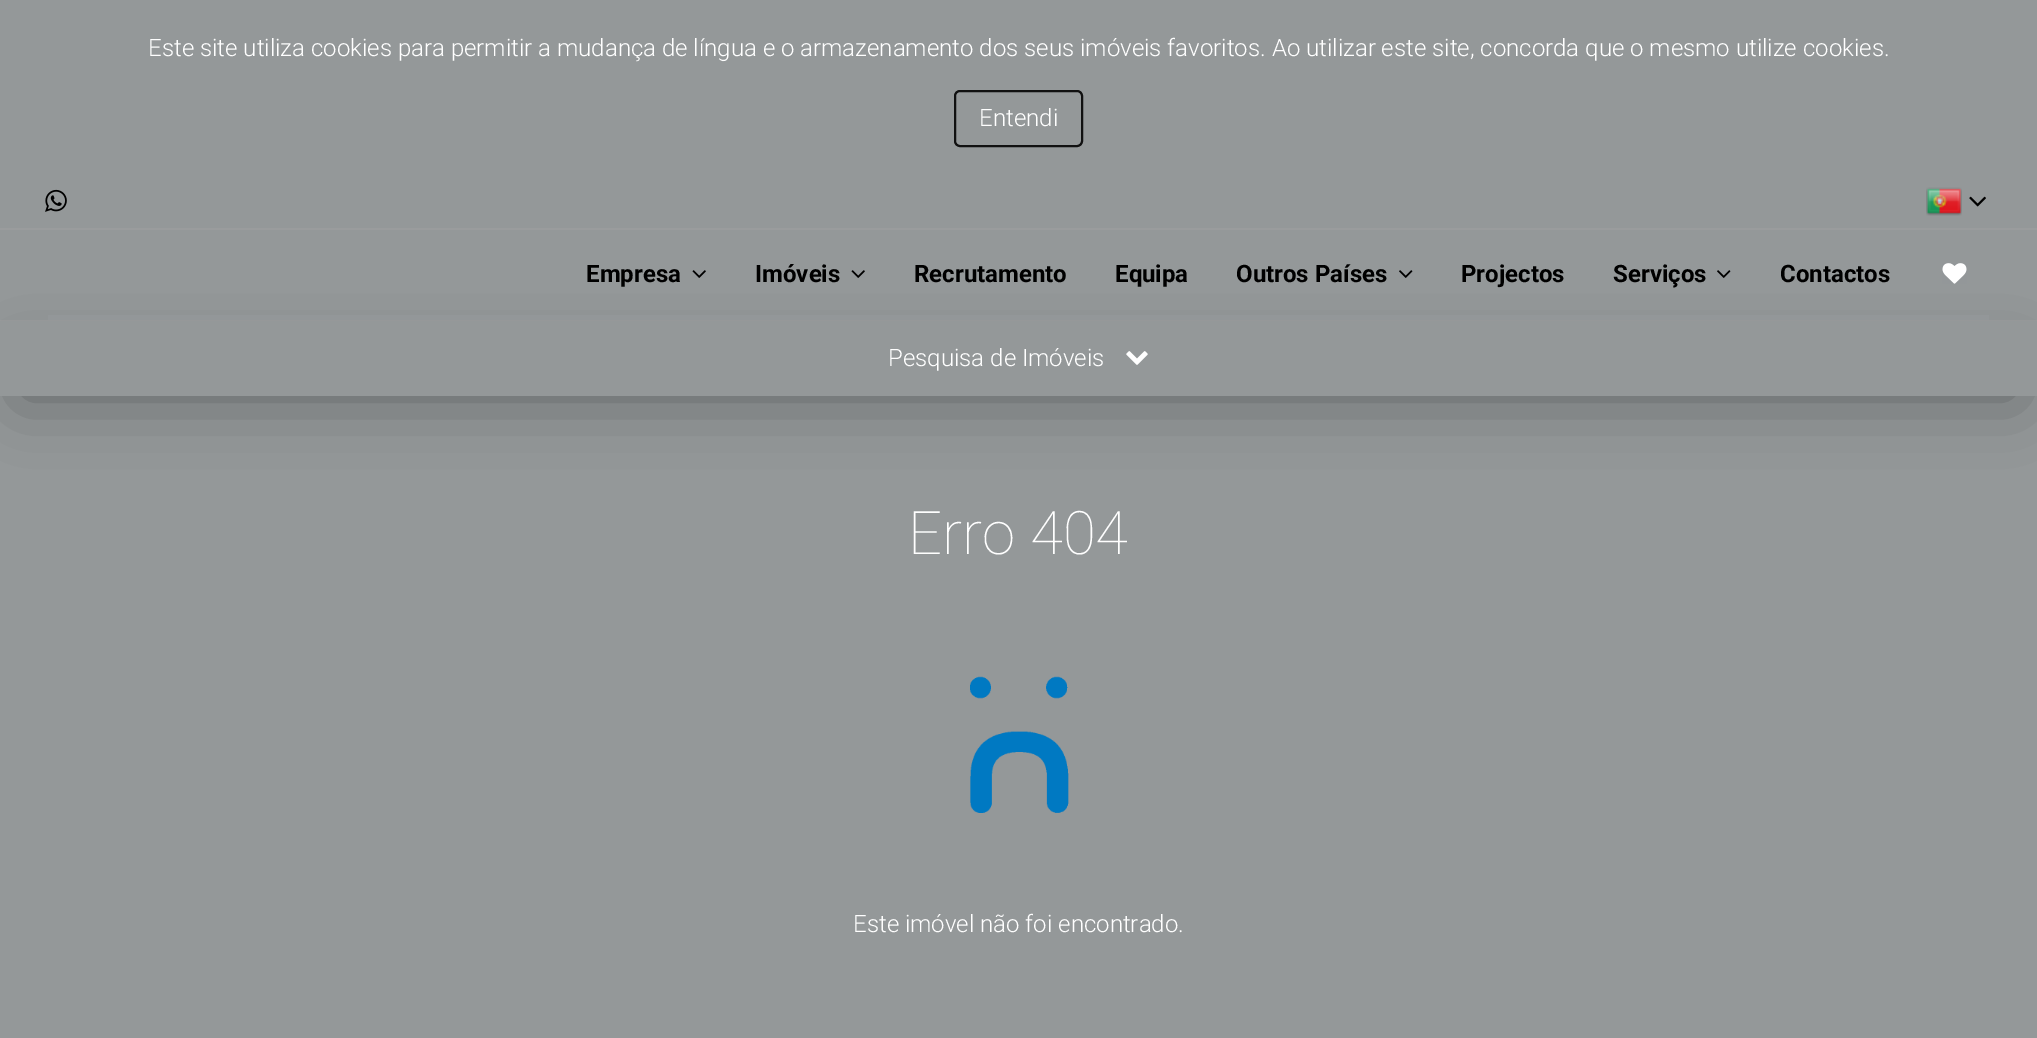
%!PS
<< /PageSize [2037 1038] /PageUsesTransparency true >> setpagedevice
/rgb { 3 { 255 div 3 1 roll } repeat setrgbcolor } def
/font { [ exch dup neg 0 0 3 -1 roll 0 0 ] selectfont } def
/alpha { dup .setfillconstantalpha .setstrokeconstantalpha } def
/roundrect { 5 dict begin { /r /h /w /y /x } { exch def } forall
  x r add y moveto x w add y 2 copy h add r arct x w add y h add x 1 index r arct
  x y h add x y r arct x y 2 copy exch w add exch r arct closepath end } def
/shadow { 12 dict begin { /a /b /q /h /w /y /x } { exch def } forall gsave /was 0 def
  9 -2 -9 { dup b mul 4 div /e exch def 1 sub .425 mul 2.718 exch exp 1 add a .99 .min exch div /now exch def
    1 1 now sub 1 was sub div sub alpha /was now def
    w h .min e 2 mul add 0 gt { x e sub y e sub w e 2 mul add h e 2 mul add
      q e add b .6 mul add w h .min 2 div e add .min 0 .max roundrect fill } if } for grestore end } def
/picture { 5 dict begin { /h /w /y /x /name } { exch def } forall
  gsave x y translate w h scale
  w h 8 [w 0 0 h 0 0] name (r) file false 3 colorimage grestore end } def
0 .pushpdf14devicefilter
0 1038 translate 1 -1 scale
4 setmiterlimit
148 152 153 rgb
0 0 2037 1038 rectfill
17 17 17 rgb
2 setlinewidth
955 91 127 55 5 roundrect stroke
154 156 157 rgb
0 320 2037 1 rectfill
0 228 2037 2 rectfill
(img/1.rgb) 45 189 22 23 picture
(img/2.rgb) 1926 187 36 29 picture
(img/3.rgb) 1969 196 17 11 picture
0 0 0 rgb
24 368 1989 27 0 33 0.37 shadow
147 151 153 rgb
48 315 1941 5 rectfill
(img/4.rgb) 692 270 14 8 picture
(img/4.rgb) 851 270 14 8 picture
(img/5.rgb) 1399 270 14 8 picture
(img/5.rgb) 1717 270 14 8 picture
(img/6.rgb) 1942 263 25 21 picture
148 152 153 rgb
0 321 2037 75 rectfill
(img/7.rgb) 1126 351 22 14 picture
(img/8.rgb) 970 676 99 137 picture
/Roboto-Light 24 font
255 255 255 rgb
148 56 moveto (Este site utiliza cookies para permitir a mudança de língua e o armazenamento dos seus imóveis favoritos. Ao utilizar este site, concorda que o mesmo utilize cookies.) show
979 126 moveto (Entendi) show
/Roboto-Bold 24 font
0 0 0 rgb
[
  [(Empresa) 586 282]
  [(Imóveis) 755 282]
  [(Recrutamento) 914 282]
  [(Equipa) 1115 282]
  [(Outros Países) 1236 282]
  [(Projectos) 1461 282]
  [(Serviços) 1613 282]
  [(Contactos) 1780 282]
] { aload pop moveto show } forall
/Roboto-Light 24 font
255 255 255 rgb
888 366 moveto (Pesquisa de Imóveis) show
/Roboto-Thin 60 font
908 554 moveto (Erro 404) show
/Roboto-Light 24 font
853 932 moveto (Este imóvel não foi encontrado.) show
.poppdf14devicefilter showpage
